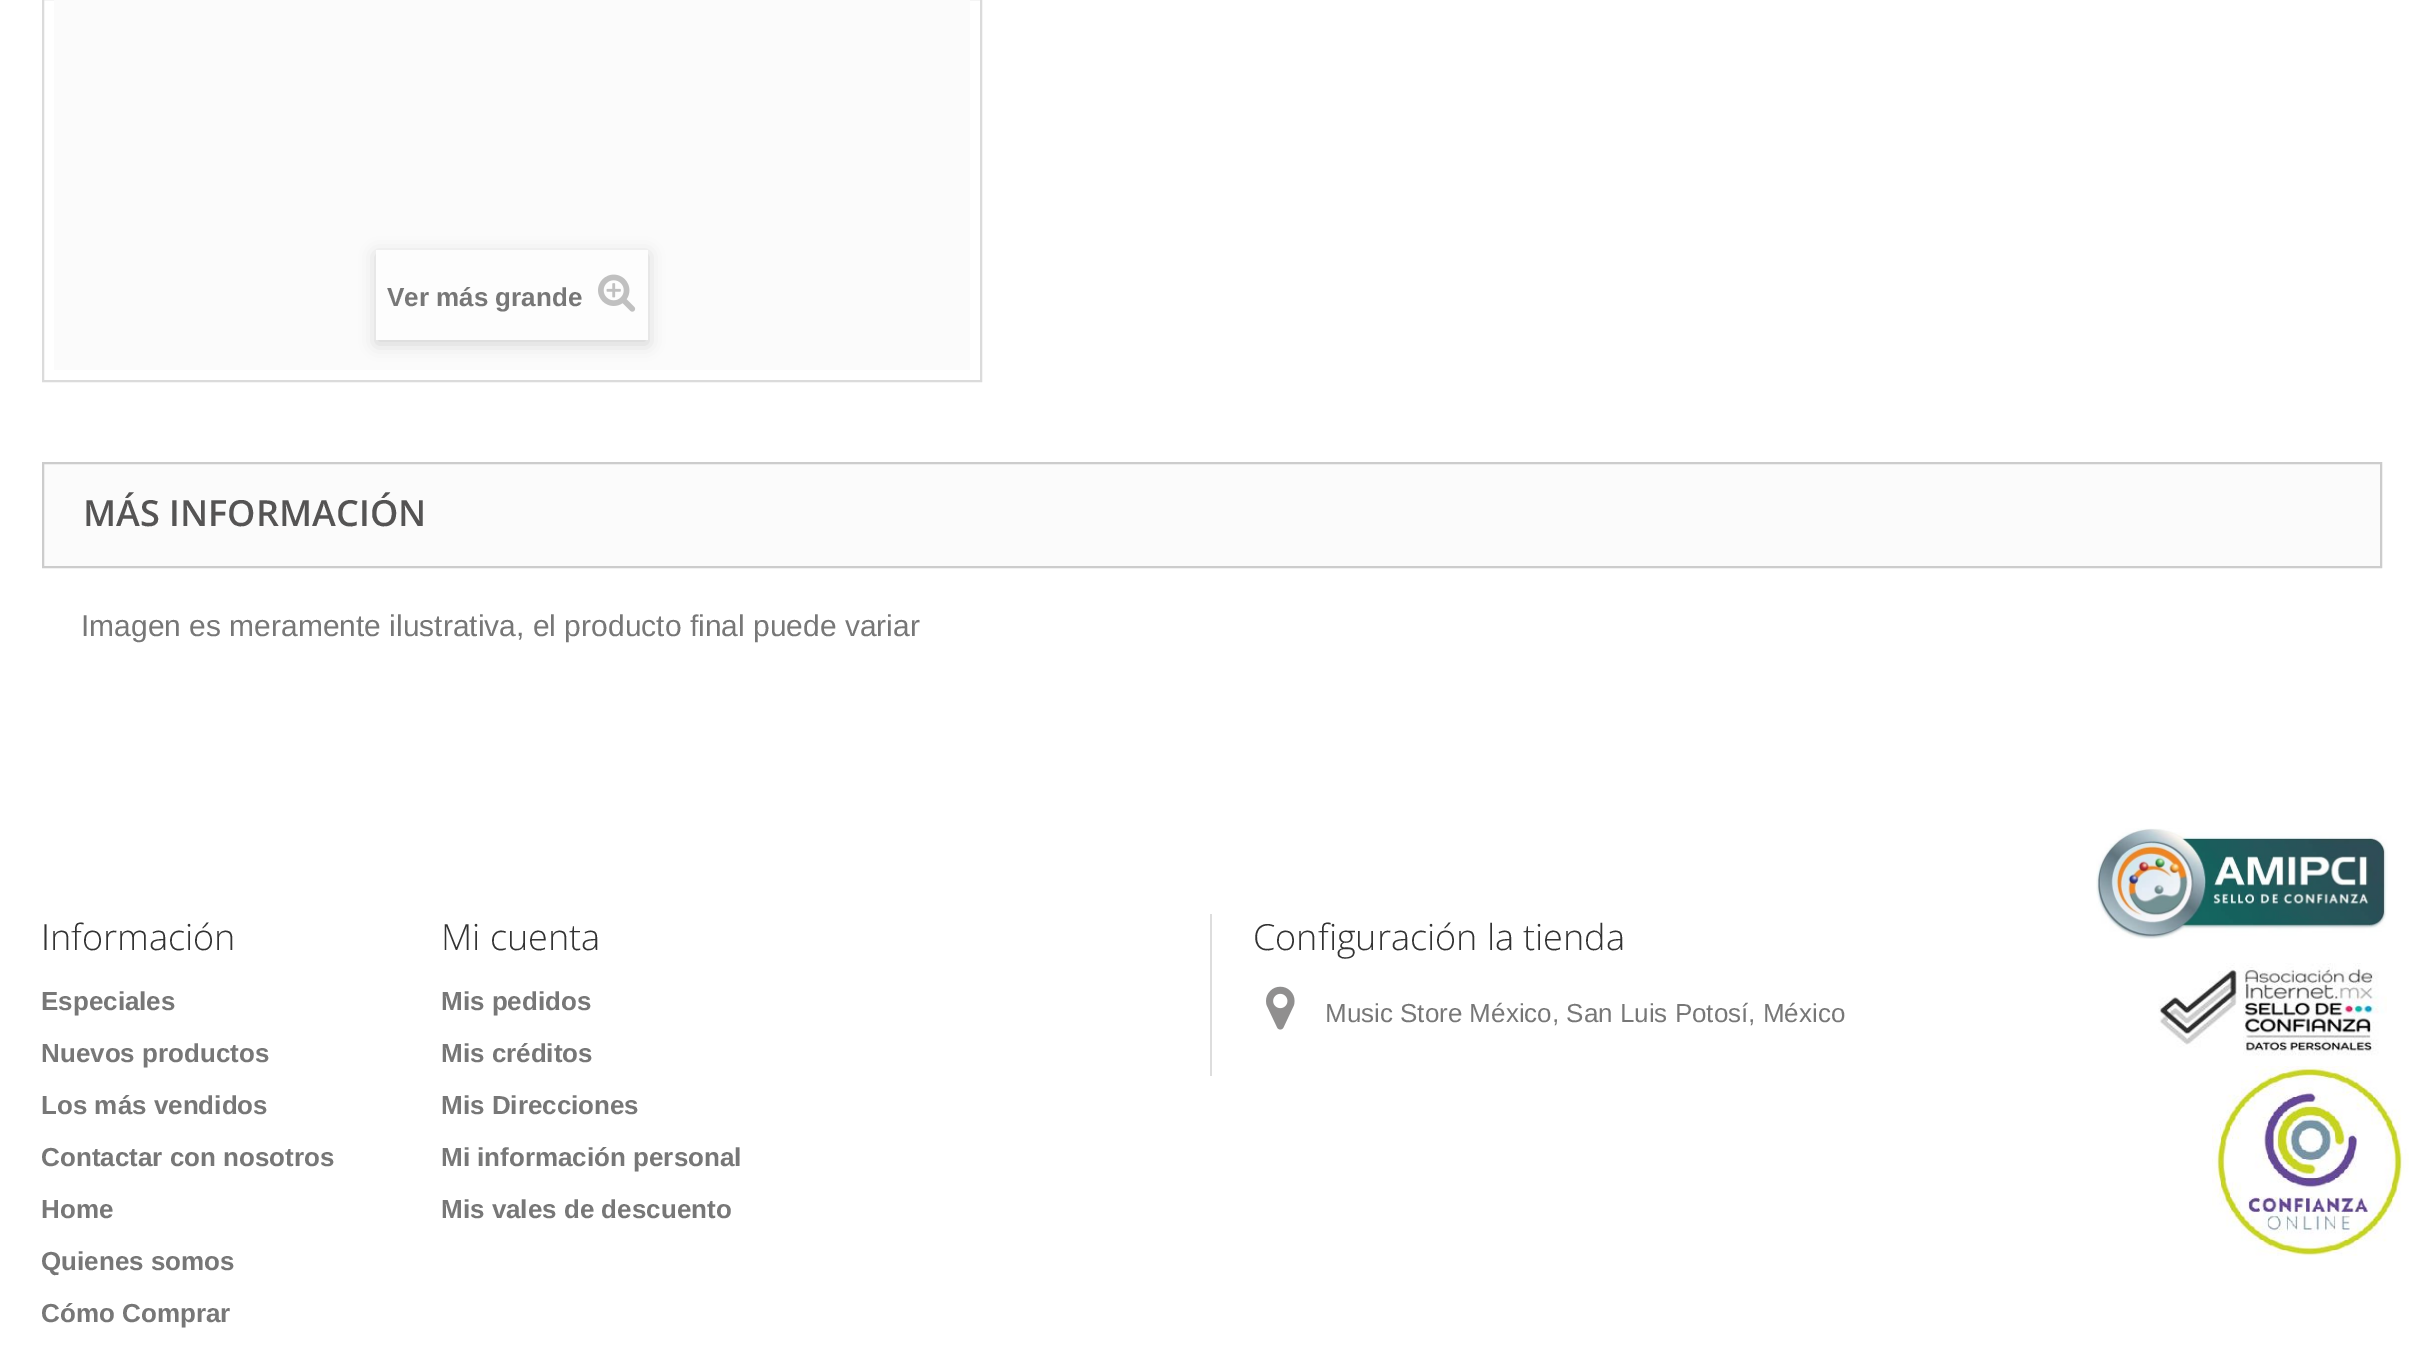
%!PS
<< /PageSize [2422 1346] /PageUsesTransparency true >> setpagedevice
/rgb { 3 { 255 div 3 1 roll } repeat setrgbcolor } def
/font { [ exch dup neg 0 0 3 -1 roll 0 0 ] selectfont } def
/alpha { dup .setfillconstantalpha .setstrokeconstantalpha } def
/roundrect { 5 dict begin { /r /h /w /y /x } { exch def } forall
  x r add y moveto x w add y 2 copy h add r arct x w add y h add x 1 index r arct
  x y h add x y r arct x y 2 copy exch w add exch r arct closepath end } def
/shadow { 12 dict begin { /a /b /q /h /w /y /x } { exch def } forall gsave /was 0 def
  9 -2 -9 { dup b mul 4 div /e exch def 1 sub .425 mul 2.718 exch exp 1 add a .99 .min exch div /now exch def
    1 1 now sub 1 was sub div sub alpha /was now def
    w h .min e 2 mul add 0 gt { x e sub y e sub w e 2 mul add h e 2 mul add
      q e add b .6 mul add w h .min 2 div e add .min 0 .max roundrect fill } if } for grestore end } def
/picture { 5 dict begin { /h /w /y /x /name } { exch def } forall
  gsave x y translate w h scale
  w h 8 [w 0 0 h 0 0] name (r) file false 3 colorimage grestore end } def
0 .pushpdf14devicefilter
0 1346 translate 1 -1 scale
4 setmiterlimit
255 255 255 rgb
0 0 2422 1346 rectfill
219 219 219 rgb
2 setlinewidth
43 -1 938 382 rectstroke
251 251 251 rgb
54 0 916 370 rectfill
0 0 0 rgb
376 254 272 90 0 8 0.16 shadow
253 253 253 rgb
376 250 272 90 rectfill
(img/1.rgb) 598 274 38 38 picture
251 251 251 rgb
43 463 moveto 2381 463 lineto 2381 567 lineto 43 567 lineto closepath gsave fill grestore
204 204 204 rgb
stroke
221 221 221 rgb
1210 914 2 162 rectfill
(img/2.rgb) 1266 986 29 44 picture
(img/3.rgb) 2096 828 292 111 picture
(img/4.rgb) 2158 963 229 93 picture
(img/5.rgb) 2212 1066 197 190 picture
/LiberationSans-Bold 26 font
119 119 119 rgb
387 306 moveto (Ver más grande) show
/OpenSans-SemiBold 36 font
85 84 84 rgb
83 526 moveto (MÁS INFORMACIÓN) show
/LiberationSans-Regular 30 font
119 119 119 rgb
81 636 moveto (Imagen es meramente ilustrativa, el producto final puede variar) show
/OpenSans-Light 36 font
51 51 51 rgb
41 950 moveto (Información) show
/LiberationSans-Bold 26 font
119 119 119 rgb
[
  [(Especiales) 41 1010]
  [(Nuevos productos) 41 1062]
  [(Los más vendidos) 41 1114]
  [(Contactar con nosotros) 41 1166]
  [(Home) 41 1218]
  [(Quienes somos) 41 1270]
  [(Cómo Comprar) 41 1322]
] { aload pop moveto show } forall
/OpenSans-Light 36 font
51 51 51 rgb
441 950 moveto (Mi cuenta) show
/LiberationSans-Bold 26 font
119 119 119 rgb
[
  [(Mis pedidos) 441 1010]
  [(Mis créditos) 441 1062]
  [(Mis Direcciones) 441 1114]
  [(Mi información personal) 441 1166]
  [(Mis vales de descuento) 441 1218]
] { aload pop moveto show } forall
/OpenSans-Light 36 font
51 51 51 rgb
1253 950 moveto (Configuración la tienda) show
/LiberationSans-Regular 26 font
119 119 119 rgb
1325 1022 moveto (Music Store México, San Luis Potosí, México) show
.poppdf14devicefilter showpage
